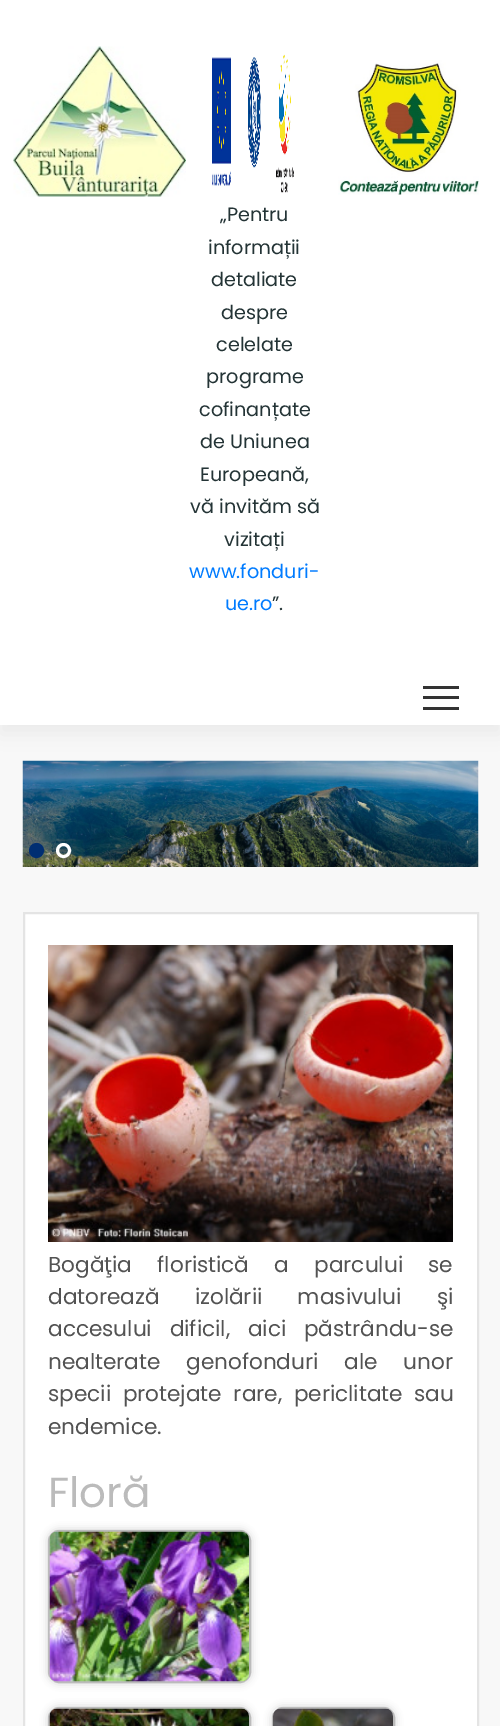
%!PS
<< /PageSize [500 1726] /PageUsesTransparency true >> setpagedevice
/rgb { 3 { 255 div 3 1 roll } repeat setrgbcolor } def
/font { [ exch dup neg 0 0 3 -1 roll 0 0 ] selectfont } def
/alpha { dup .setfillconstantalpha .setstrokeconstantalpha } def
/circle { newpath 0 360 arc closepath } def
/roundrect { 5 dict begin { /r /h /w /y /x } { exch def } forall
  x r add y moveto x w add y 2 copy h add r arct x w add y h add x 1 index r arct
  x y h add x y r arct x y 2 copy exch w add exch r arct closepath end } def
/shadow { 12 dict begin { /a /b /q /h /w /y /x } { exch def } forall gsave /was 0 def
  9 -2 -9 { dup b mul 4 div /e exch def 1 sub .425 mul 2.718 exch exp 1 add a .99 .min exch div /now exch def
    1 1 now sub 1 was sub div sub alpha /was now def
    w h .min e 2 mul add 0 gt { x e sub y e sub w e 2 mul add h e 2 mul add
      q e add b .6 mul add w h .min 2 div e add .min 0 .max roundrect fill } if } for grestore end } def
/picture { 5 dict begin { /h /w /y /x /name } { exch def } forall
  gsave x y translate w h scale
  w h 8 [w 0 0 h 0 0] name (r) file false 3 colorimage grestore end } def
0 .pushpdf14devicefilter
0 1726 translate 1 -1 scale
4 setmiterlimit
248 248 248 rgb
0 0 500 1726 rectfill
0 0 0 rgb
0 9 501 725 0 10 0.06 shadow
255 255 255 rgb
0 0 500 725 rectfill
(img/1.rgb) 13 46 173 151 picture
(img/2.rgb) 212 54 82 139 picture
(img/3.rgb) 338 60 141 135 picture
[
  [423 696 36 3 51 51 51]
  [423 686 36 3 51 51 51]
  [423 707 36 3 51 51 51]
] { aload pop rgb rectfill } forall
(img/4.rgb) 22 760 457 107 picture
0 46 114 rgb
36.5 850.5 6 circle gsave fill grestore
3 setlinewidth
stroke
255 255 255 rgb
63.5 850.5 6 circle stroke
24 913 moveto 478 913 lineto 478 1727 lineto 24 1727 lineto closepath gsave fill grestore
228 228 228 rgb
2 setlinewidth
stroke
(img/5.rgb) 48 945 405 297 picture
204 204 204 rgb
48 1530 203 153 11 4 1 shadow
187 187 187 rgb
49 1531 201 151 10 roundrect stroke
(img/6.rgb) 49 1531 200 151 picture
204 204 204 rgb
48 1707 203 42 11 4 1 shadow
187 187 187 rgb
49 1708 201 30 10 roundrect stroke
(img/7.rgb) 49 1708 200 18 picture
204 204 204 rgb
272 1707 123 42 11 4 1 shadow
187 187 187 rgb
273 1708 121 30 10 roundrect stroke
(img/8.rgb) 273 1708 120 18 picture
/Poppins-Regular 19.25 font
36 52 54 rgb
[
  [(„Pentru) 220 221]
  [(informații) 208 254]
  [(detaliate) 211 286]
  [(despre) 221 319]
  [(celelate) 216 351]
  [(programe) 206 383]
  [(cofinanțate) 199 416]
  [(de Uniunea) 200 448]
  [(Europeană,) 200 481]
  [(vă invităm să) 190 513]
  [(vizitați) 224 546]
] { aload pop moveto show } forall
0 123 255 rgb
189 578 moveto (www.fonduri-) show
225 610 moveto (ue.ro) show
36 52 54 rgb
272 610 moveto (”.) show
/Poppins-Regular 21.6 font
83 83 83 rgb
48 1272 moveto 19.5 0 32 (Bogăţia floristică a parcului se) widthshow
48 1304 moveto 29.5 0 32 (datorează izolării masivului şi) widthshow
48 1336 moveto 12 0 32 (accesului dificil, aici păstrându-se) widthshow
48 1369 moveto 20 0 32 (nealterate genofonduri ale unor) widthshow
48 1401 moveto 6 0 32 (specii protejate rare, periclitate sau) widthshow
48 1434 moveto (endemice.) show
/Poppins-Regular 42 font
187 187 187 rgb
48 1507 moveto (Floră) show
.poppdf14devicefilter showpage
